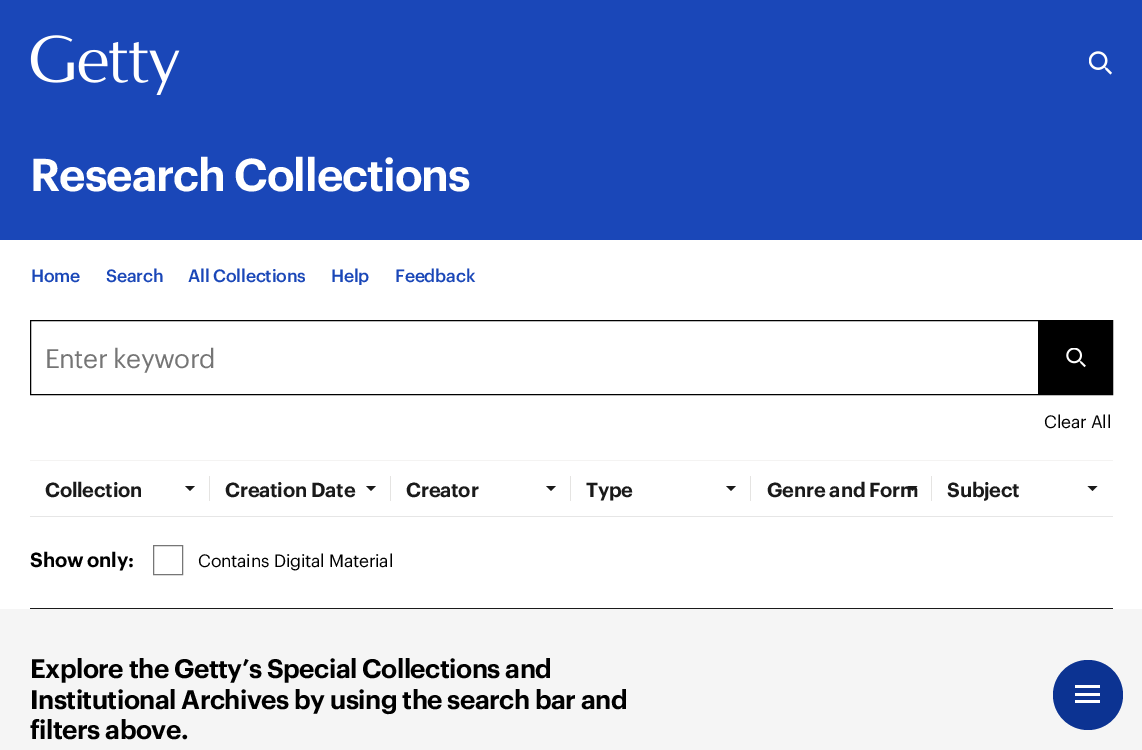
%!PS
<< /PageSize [1142 750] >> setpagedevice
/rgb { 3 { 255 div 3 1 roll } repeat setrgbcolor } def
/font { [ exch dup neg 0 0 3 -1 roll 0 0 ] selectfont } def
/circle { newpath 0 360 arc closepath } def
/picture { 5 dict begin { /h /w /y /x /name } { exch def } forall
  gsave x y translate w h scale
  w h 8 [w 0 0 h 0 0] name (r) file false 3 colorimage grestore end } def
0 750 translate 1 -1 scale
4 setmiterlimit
255 255 255 rgb
0 0 1142 750 rectfill
26 71 184 rgb
0 0 1142 240 rectfill
(img/1.rgb) 30 35 150 60 picture
(img/2.rgb) 1089 51 23 24 picture
245 245 245 rgb
0 609 1142 141 rectfill
12 51 146 rgb
1088 695 35 circle fill
[
  [1075 693 25 3 255 255 255]
  [1075 685 25 3 255 255 255]
  [1075 700 25 3 255 255 255]
  [1038 321 74 73 0 0 0]
] { aload pop rgb rectfill } forall
30.5 320.5 1082 74 rectstroke
(img/3.rgb) 1066 348 20 20 picture
244 243 242 rgb
30 460 1083 1 rectfill
26 26 26 rgb
185 486 moveto 195 486 lineto 190 491 lineto closepath fill
229 228 226 rgb
209 476 1 25 rectfill
26 26 26 rgb
366 486 moveto 376 486 lineto 371 491 lineto closepath fill
229 228 226 rgb
390 476 1 25 rectfill
26 26 26 rgb
546 486 moveto 556 486 lineto 551 491 lineto closepath fill
229 228 226 rgb
570 476 1 25 rectfill
26 26 26 rgb
726 486 moveto 736 486 lineto 731 491 lineto closepath fill
229 228 226 rgb
750 476 1 25 rectfill
26 26 26 rgb
907.5 486 moveto 917.5 486 lineto 912.5 491 lineto closepath fill
229 228 226 rgb
931 476 1 25 rectfill
26 26 26 rgb
1087.5 486 moveto 1097.5 486 lineto 1092.5 491 lineto closepath fill
230 230 230 rgb
30 516 1083 1 rectfill
26 26 26 rgb
30 608 1083 1 rectfill
118 118 118 rgb
153.5 545.5 29 29 rectstroke
/Graphik-SemiBold 45 font
255 255 255 rgb
30 191 moveto -1 0 (Research Collections) ashow
/Graphik-Medium 17.5 font
26 71 184 rgb
31 282 moveto -0.2 0 (Home) ashow
106 282 moveto -0.2 0 (Search) ashow
188 282 moveto -0.2 0 (All Collections) ashow
331 282 moveto -0.2 0 (Help) ashow
395 282 moveto -0.2 0 (Feedback) ashow
/Graphik-Regular 26.25 font
117 117 117 rgb
45 368 moveto -0.53 0 (Enter keyword) ashow
/Graphik-Regular 17.5 font
0 0 0 rgb
1044 428 moveto -0.2 0 (Clear All) ashow
/Graphik-SemiBold 20 font
26 26 26 rgb
45 497 moveto -0.25 0 (Collection) ashow
225 497 moveto -0.25 0 (Creation Date) ashow
406 497 moveto -0.25 0 (Creator) ashow
586 497 moveto -0.25 0 (Type) ashow
767 497 moveto -0.25 0 (Genre and Form) ashow
947 497 moveto -0.25 0 (Subject) ashow
0 0 0 rgb
30 567 moveto -0.25 0 (Show only:) ashow
/Graphik-Regular 17.5 font
198 567 moveto -0.2 0 (Contains Digital Material) ashow
/Graphik-SemiBold 26.25 font
30 678 moveto -0.53 0 (Explore the Getty’s Special Collections and) ashow
30 709 moveto -0.53 0 (Institutional Archives by using the search bar and) ashow
30 739 moveto -0.53 0 (filters above.) ashow
showpage
